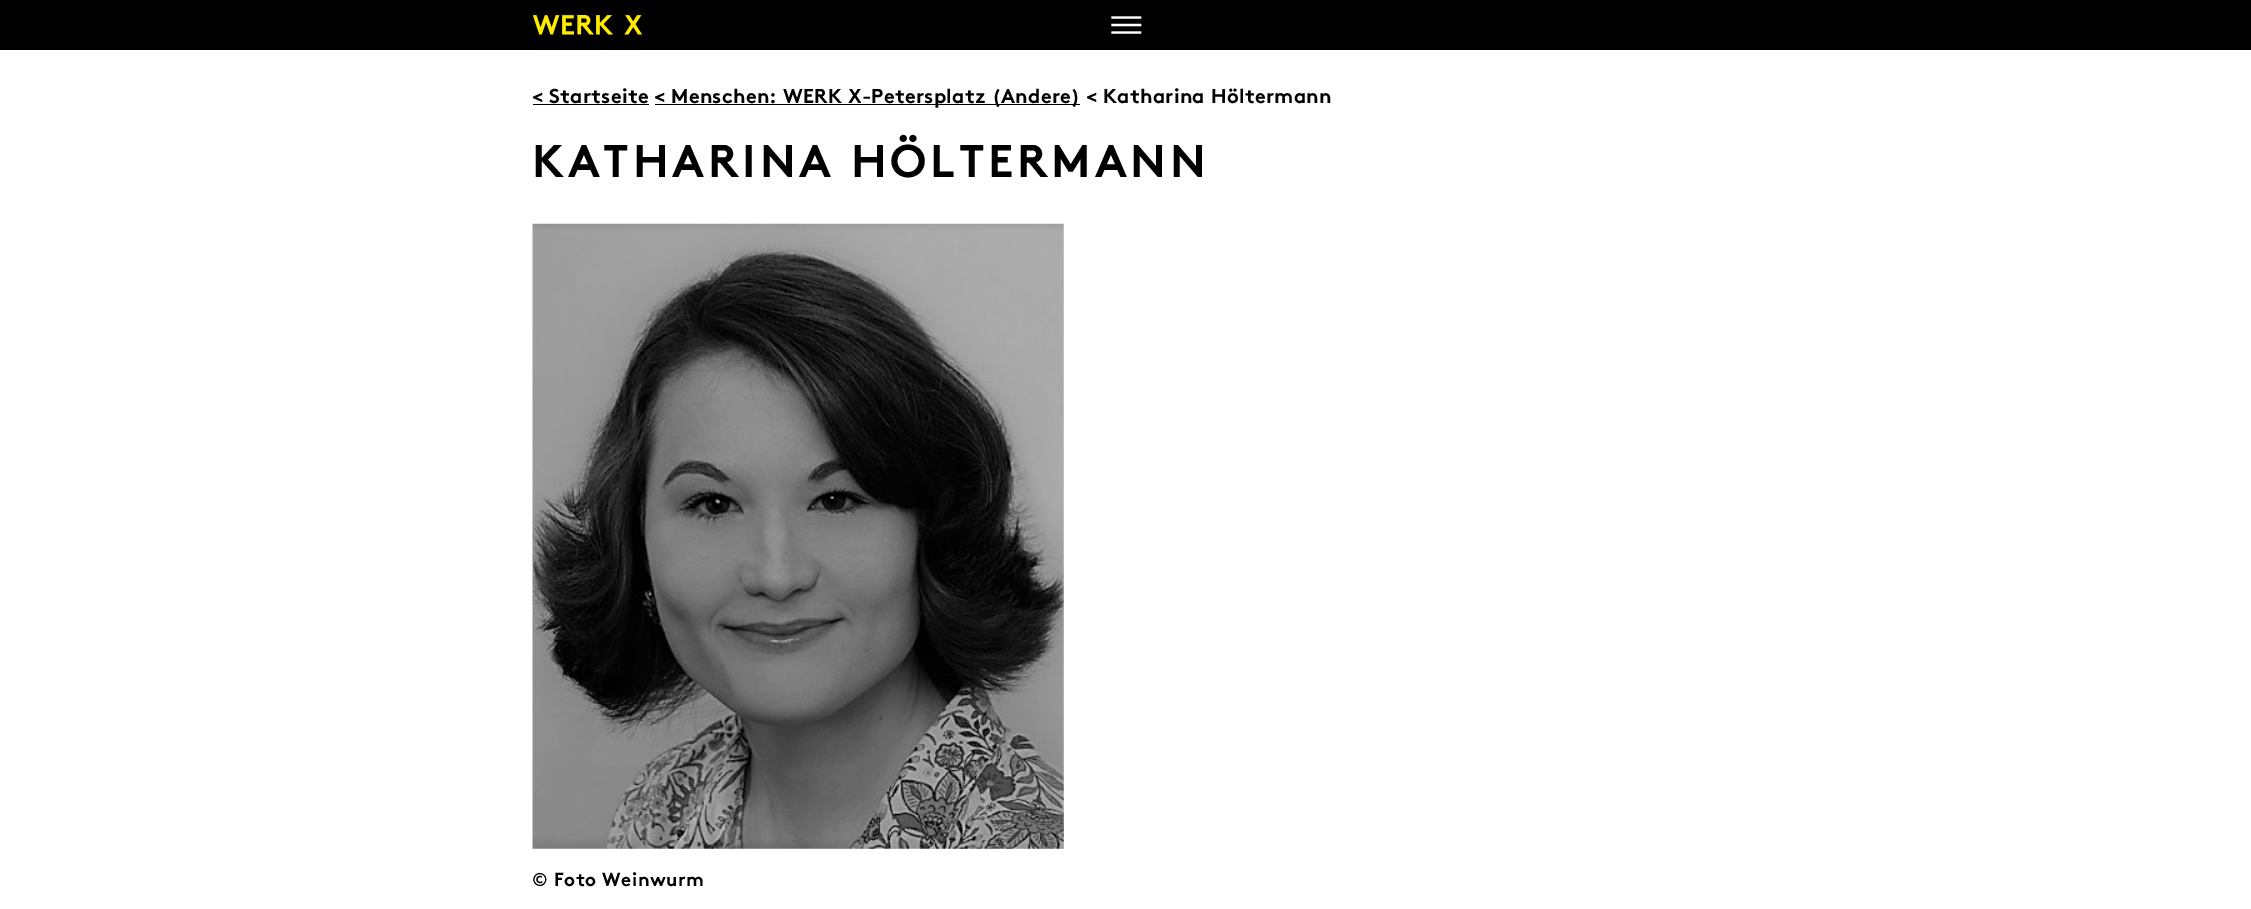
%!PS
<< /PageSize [2251 909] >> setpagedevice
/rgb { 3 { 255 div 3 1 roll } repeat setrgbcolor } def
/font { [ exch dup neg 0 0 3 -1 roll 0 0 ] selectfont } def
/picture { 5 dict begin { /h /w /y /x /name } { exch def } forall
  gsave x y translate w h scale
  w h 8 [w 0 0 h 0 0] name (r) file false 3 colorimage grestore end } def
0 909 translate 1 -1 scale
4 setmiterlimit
255 255 255 rgb
0 0 2251 909 rectfill
0 0 0 rgb
0 0 2251 50 rectfill
(img/1.rgb) 533 15 110 20 picture
(img/2.rgb) 1111 16 31 18 picture
533 104 116 1 rectfill
655 104 425 1 rectfill
(img/3.rgb) 532 223 532 626 picture
/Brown-Bold 20.1 font
532 103 moveto 0.25 0 (< Startseite) ashow
654 103 moveto 0.25 0 (< Menschen: WERK X-Petersplatz \(Andere\)) ashow
1086 103 moveto 0.25 0 (< Katharina Höltermann) ashow
/Brown-Bold 45.9 font
532 177 moveto 3.75 0 (KATHARINA HÖLTERMANN) ashow
/Brown-Bold 18.75 font
532 886 moveto 0.5 0 (© Foto Weinwurm) ashow
showpage
